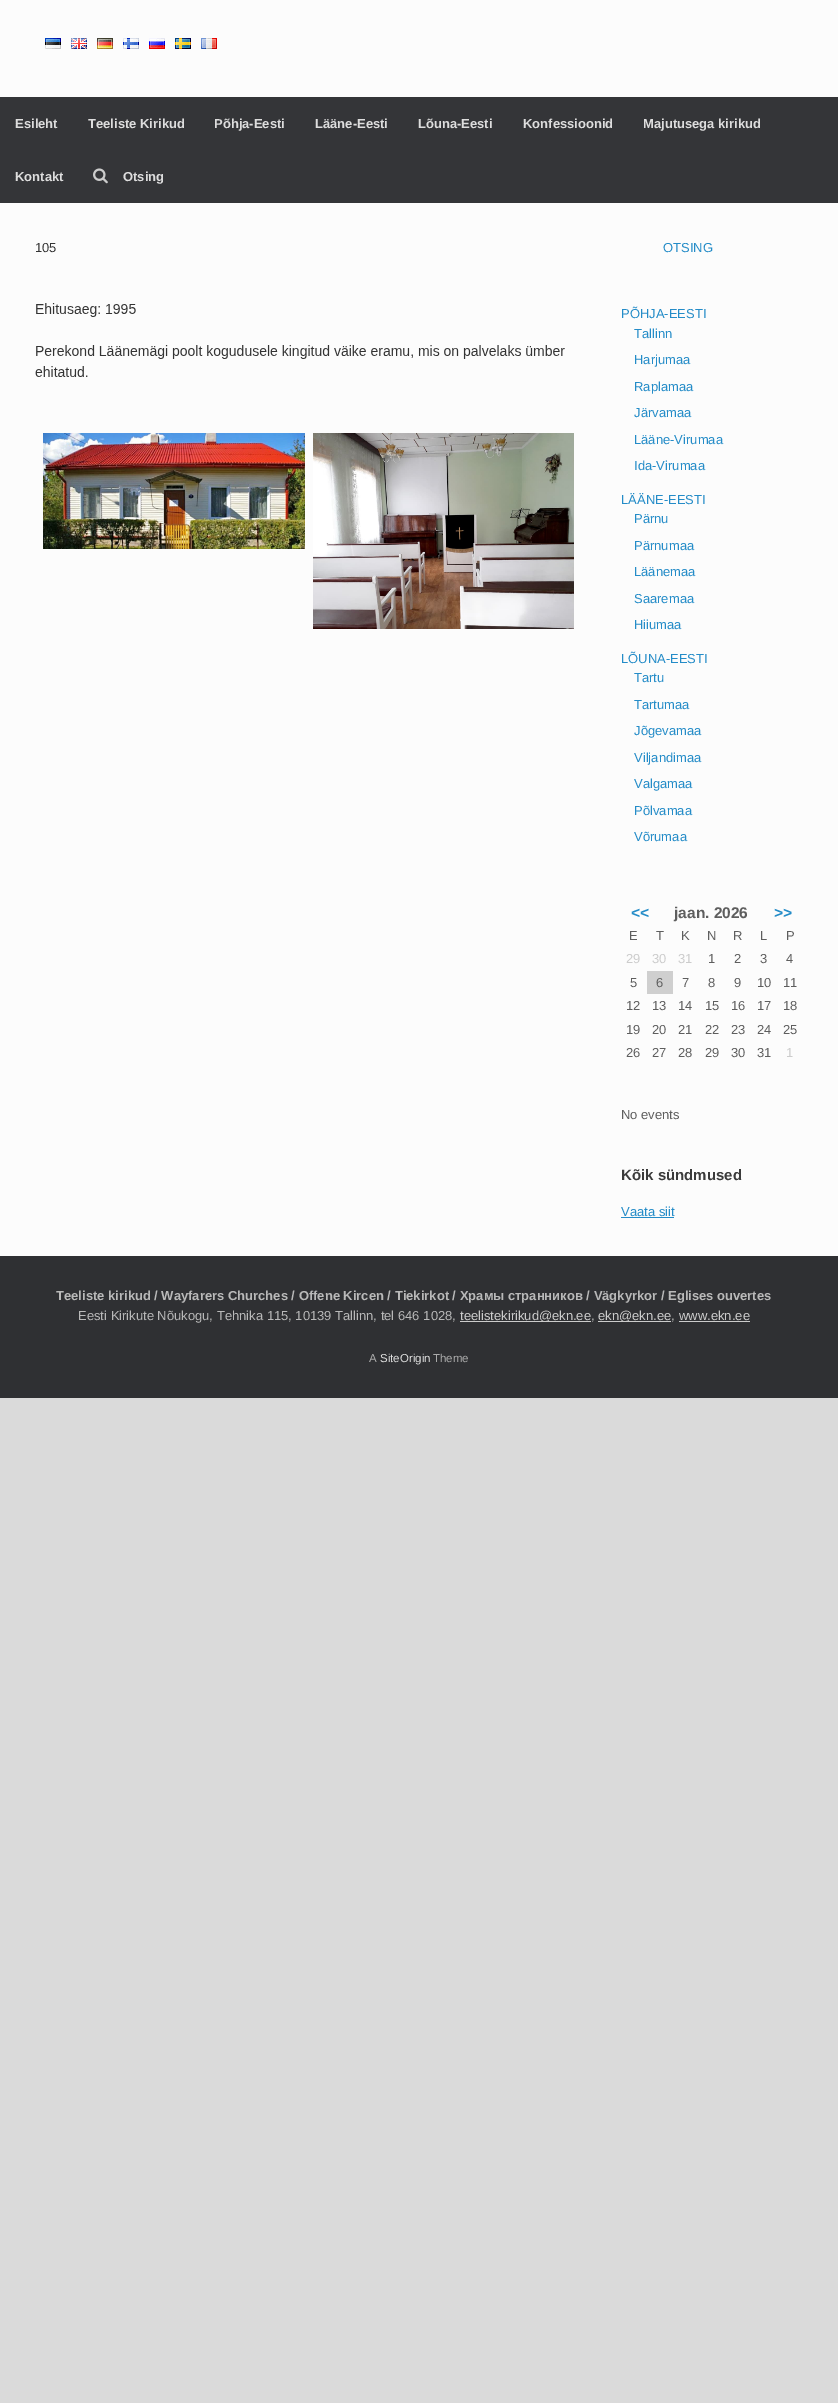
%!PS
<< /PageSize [838 2403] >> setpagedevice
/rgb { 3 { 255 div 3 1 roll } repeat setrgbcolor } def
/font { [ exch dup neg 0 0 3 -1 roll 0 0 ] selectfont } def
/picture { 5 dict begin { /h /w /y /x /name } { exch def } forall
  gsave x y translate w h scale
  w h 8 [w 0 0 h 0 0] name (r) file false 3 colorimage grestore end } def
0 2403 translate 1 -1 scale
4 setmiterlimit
218 218 218 rgb
0 0 838 2403 rectfill
252 252 252 rgb
0 0 838 97 rectfill
(img/1.rgb) 45 38 16 11 picture
(img/2.rgb) 71 38 16 11 picture
(img/3.rgb) 97 38 16 11 picture
(img/4.rgb) 123 38 16 11 picture
(img/5.rgb) 149 38 16 11 picture
(img/6.rgb) 175 38 16 11 picture
(img/7.rgb) 201 38 16 11 picture
52 53 56 rgb
0 97 838 106 rectfill
(img/8.rgb) 93 168 15 16 picture
252 252 252 rgb
0 203 838 1053 rectfill
(img/9.rgb) 35 303 539 326 picture
[
  [647 971 26 23 207 207 207]
  [621 1217 53 1 36 140 200]
  [0 1256 838 142 47 48 51]
  [460 1321 131 1 204 204 204]
  [598 1321 73 1 204 204 204]
  [679 1321 71 1 204 204 204]
] { aload pop rgb rectfill } forall
/LiberationSans-Bold 13 font
221 221 221 rgb
[
  [(Esileht) 15 128]
  [(Teeliste Kirikud) 88 128]
  [(Põhja-Eesti) 214 128]
  [(Lääne-Eesti) 315 128]
  [(Lõuna-Eesti) 418 128]
  [(Konfessioonid) 523 128]
  [(Majutusega kirikud) 643 128]
  [(Kontakt) 15 181]
  [(Otsing) 123 181]
] { aload pop moveto show } forall
/LiberationSans-Regular 13 font
51 51 51 rgb
35 252 moveto (105) show
36 140 200 rgb
[
  [(OTSING) 663 252]
  [(PÕHJA-EESTI) 621 318]
  [(Tallinn) 634 338]
  [(Harjumaa) 634 364]
  [(Raplamaa) 634 391]
  [(Järvamaa) 634 417]
  [(Lääne-Virumaa) 634 444]
  [(Ida-Virumaa) 634 470]
  [(LÄÄNE-EESTI) 621 504]
  [(Pärnu) 634 523]
  [(Pärnumaa) 634 550]
  [(Läänemaa) 634 576]
  [(Saaremaa) 634 603]
  [(Hiiumaa) 634 629]
  [(LÕUNA-EESTI) 621 663]
  [(Tartu) 634 682]
  [(Tartumaa) 634 709]
  [(Jõgevamaa) 634 735]
  [(Viljandimaa) 634 762]
  [(Valgamaa) 634 788]
  [(Põlvamaa) 634 815]
  [(Võrumaa) 634 841]
] { aload pop moveto show } forall
/LiberationSans-Bold 15.5 font
631 918 moveto (<<) show
94 94 94 rgb
674 918 moveto (jaan. 2026) show
36 140 200 rgb
774 918 moveto (>>) show
/LiberationSans-Regular 13 font
94 94 94 rgb
[
  [(E) 629 940]
  [(T) 656 940]
  [(K) 681 940]
  [(N) 707 940]
  [(R) 733 940]
  [(L) 760 940]
  [(P) 786 940]
] { aload pop moveto show } forall
204 204 204 rgb
[
  [(29) 626 963]
  [(30) 652 963]
  [(31) 678 963]
] { aload pop moveto show } forall
94 94 94 rgb
[
  [(1) 708 963]
  [(2) 734 963]
  [(3) 760 963]
  [(4) 786 963]
  [(5) 630 987]
  [(6) 656 987]
  [(7) 682 987]
  [(8) 708 987]
  [(9) 734 987]
  [(10) 757 987]
  [(11) 783 987]
  [(12) 626 1010]
  [(13) 652 1010]
  [(14) 678 1010]
  [(15) 705 1010]
  [(16) 731 1010]
  [(17) 757 1010]
  [(18) 783 1010]
  [(19) 626 1034]
  [(20) 652 1034]
  [(21) 678 1034]
  [(22) 705 1034]
  [(23) 731 1034]
  [(24) 757 1034]
  [(25) 783 1034]
  [(26) 626 1057]
  [(27) 652 1057]
  [(28) 678 1057]
  [(29) 705 1057]
  [(30) 731 1057]
  [(31) 757 1057]
] { aload pop moveto show } forall
204 204 204 rgb
786 1057 moveto (1) show
94 94 94 rgb
621 1119 moveto (No events) show
/LiberationSans-Bold 15 font
59 59 59 rgb
621 1180 moveto (Kõik sündmused) show
/LiberationSans-Regular 13 font
36 140 200 rgb
621 1216 moveto (Vaata siit) show
/LiberationSans-Bold 13 font
185 185 185 rgb
56 1300 moveto (Teeliste kirikud / Wayfarers Churches / Offene Kircen / Tiekirkot / Храмы странников / Vägkyrkor / Eglises ouvertes) show
/LiberationSans-Regular 13 font
78 1320 moveto (Eesti Kirikute Nõukogu, Tehnika 115, 10139 Tallinn, tel 646 1028,) show
204 204 204 rgb
460 1320 moveto (teelistekirikud@ekn.ee) show
185 185 185 rgb
591 1320 moveto (,) show
204 204 204 rgb
598 1320 moveto (ekn@ekn.ee) show
185 185 185 rgb
671 1320 moveto (,) show
204 204 204 rgb
679 1320 moveto (www.ekn.ee) show
/LiberationSans-Regular 11.5 font
170 170 170 rgb
369 1362 moveto (A) show
221 221 221 rgb
380 1362 moveto (SiteOrigin) show
170 170 170 rgb
433 1362 moveto (Theme) show
showpage
